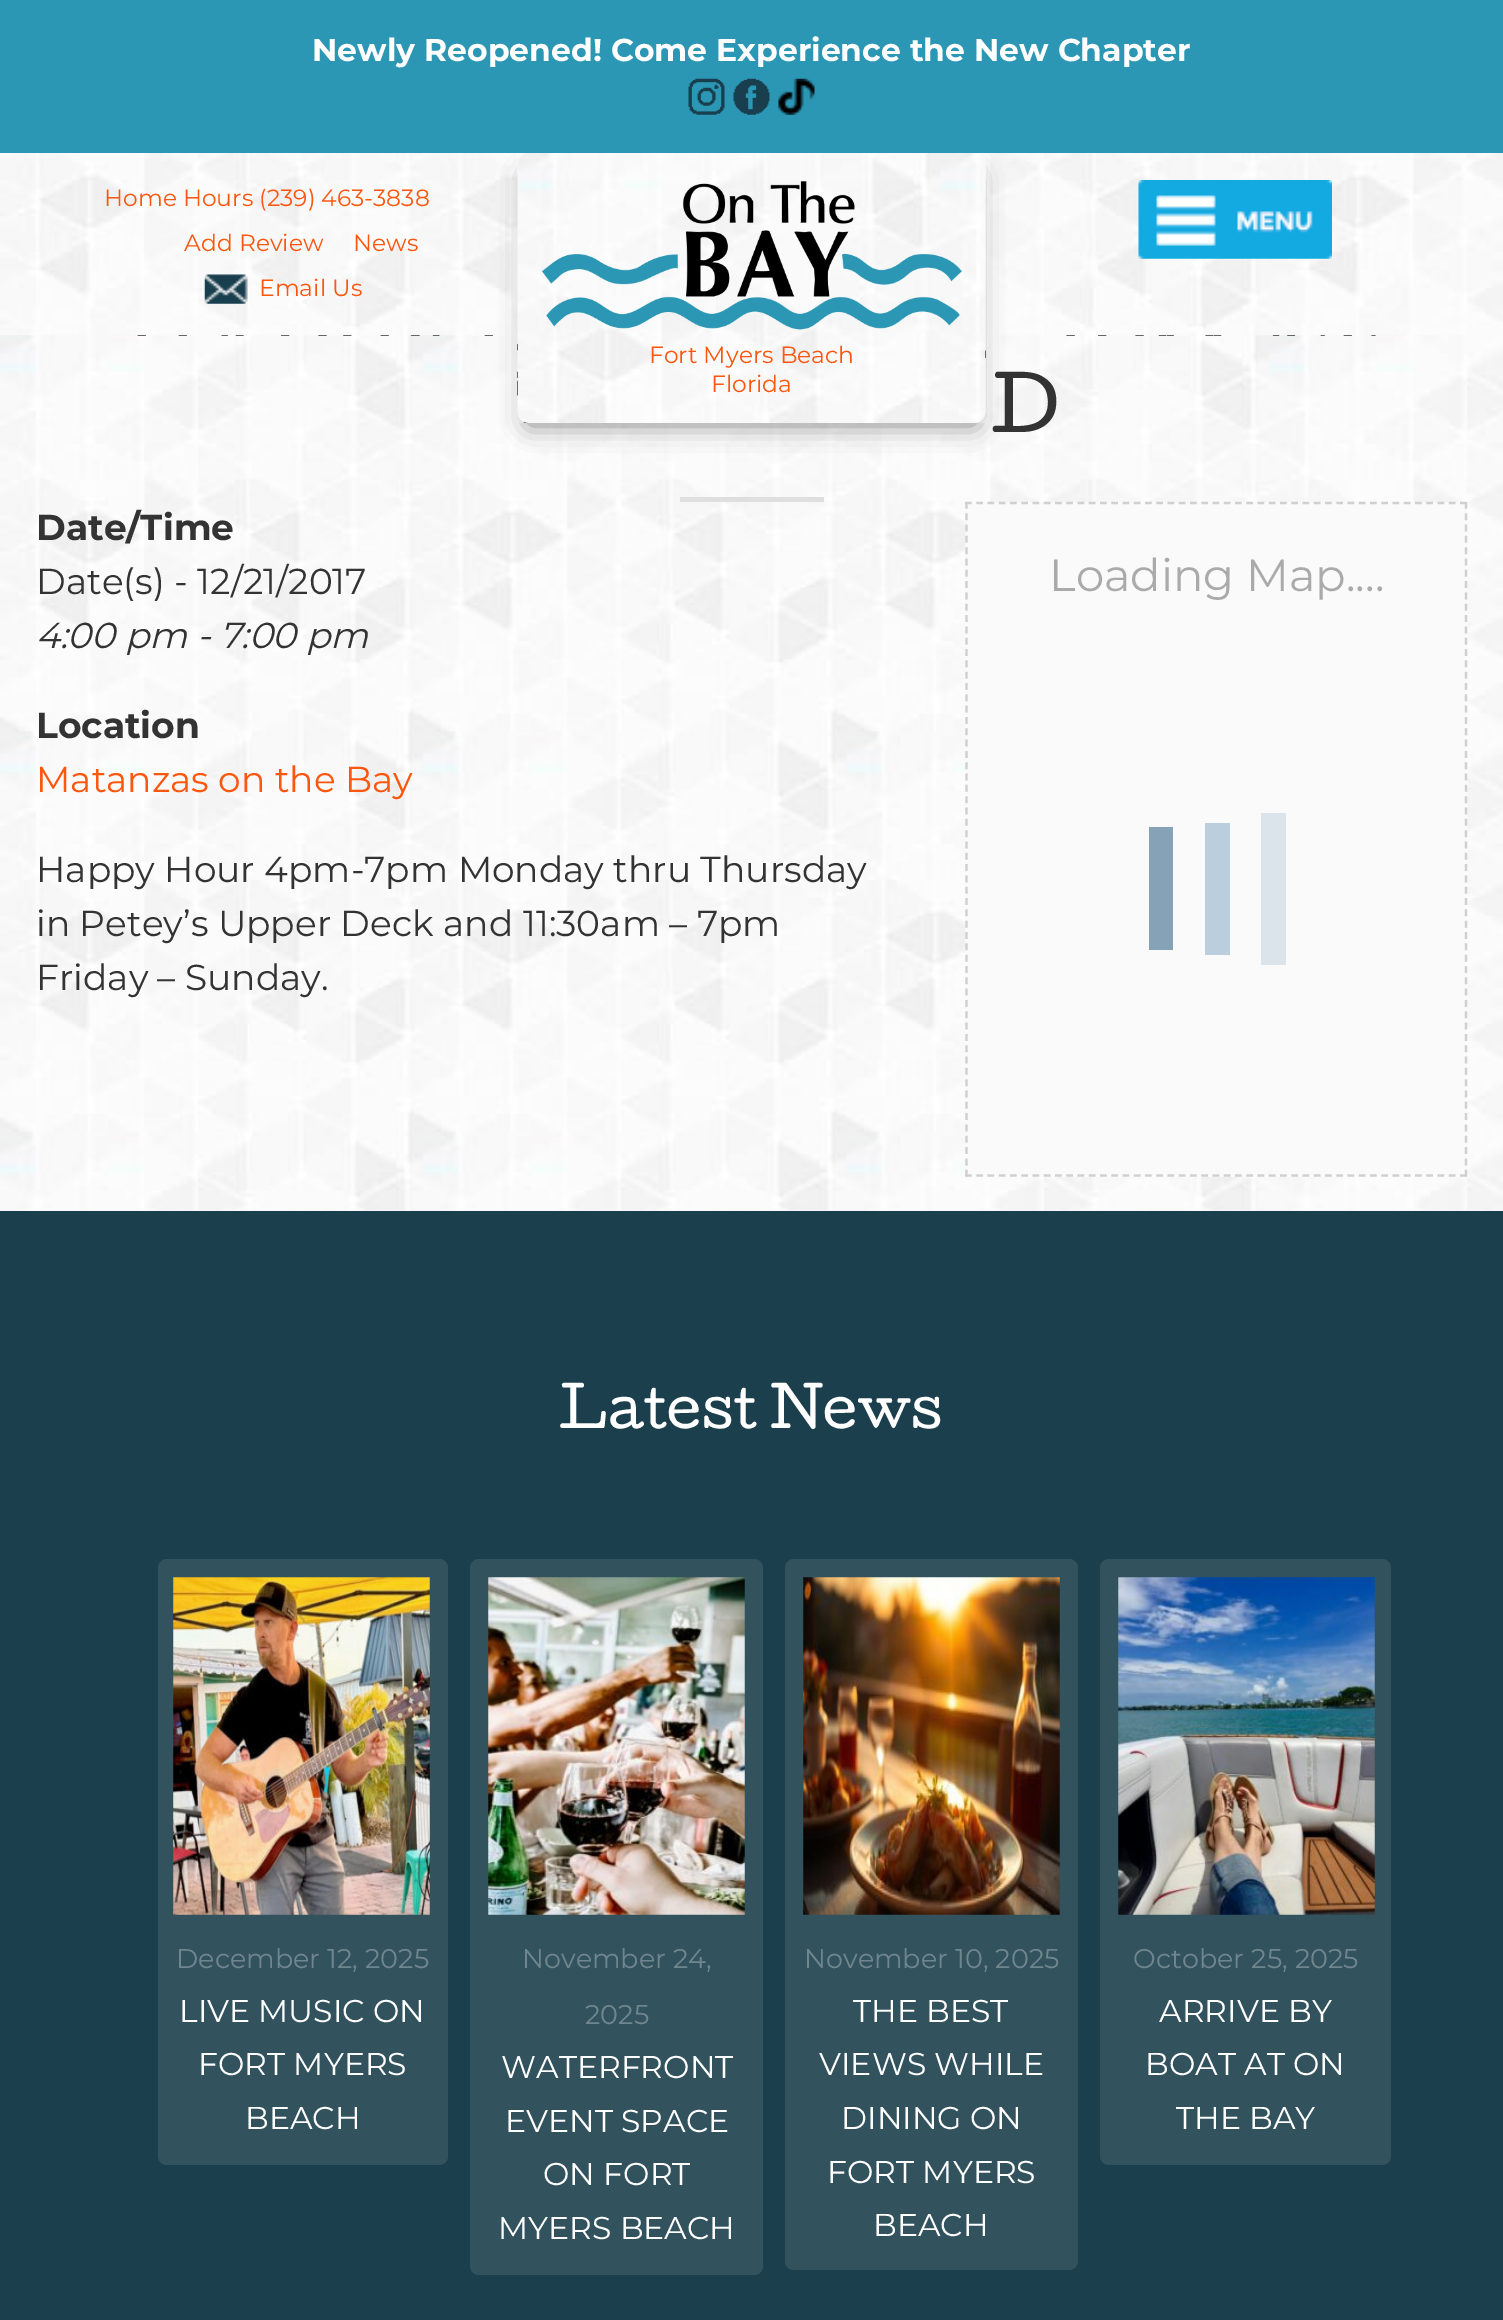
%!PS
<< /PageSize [1503 2320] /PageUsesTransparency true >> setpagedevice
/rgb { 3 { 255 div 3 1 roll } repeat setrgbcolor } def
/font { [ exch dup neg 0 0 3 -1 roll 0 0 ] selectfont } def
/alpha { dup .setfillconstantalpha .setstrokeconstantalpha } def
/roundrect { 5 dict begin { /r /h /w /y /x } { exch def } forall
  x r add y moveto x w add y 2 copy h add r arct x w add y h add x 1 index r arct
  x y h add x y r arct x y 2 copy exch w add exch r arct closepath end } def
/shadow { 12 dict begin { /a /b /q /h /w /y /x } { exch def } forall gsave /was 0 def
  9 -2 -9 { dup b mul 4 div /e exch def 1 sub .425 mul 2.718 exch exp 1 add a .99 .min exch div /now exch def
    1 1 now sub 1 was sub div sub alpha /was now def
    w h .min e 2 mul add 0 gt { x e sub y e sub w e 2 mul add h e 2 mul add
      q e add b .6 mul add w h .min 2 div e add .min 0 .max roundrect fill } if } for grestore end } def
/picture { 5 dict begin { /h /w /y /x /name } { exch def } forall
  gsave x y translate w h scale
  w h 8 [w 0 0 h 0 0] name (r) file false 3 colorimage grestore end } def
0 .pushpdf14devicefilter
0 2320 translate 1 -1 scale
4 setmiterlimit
255 255 255 rgb
0 0 1503 2320 rectfill
(img/1.rgb) 0 153 1503 1058 picture
(img/10.rgb) 0 335 1503 876 picture
(img/2.rgb) 137 335 1239 1 picture
133 133 133 rgb
527 173 450 252 2 12.5 1 shadow
43 151 181 rgb
0 0 1503 153 rectfill
(img/3.rgb) 688 78 37 37 picture
(img/4.rgb) 733 78 37 37 picture
(img/5.rgb) 778 78 37 37 picture
(img/6.rgb) 1138 180 194 79 picture
(img/7.rgb) 204 274 44 30 picture
(img/8.rgb) 517 153 469 270 picture
(img/9.rgb) 542 181 420 149 picture
223 223 223 rgb
680 497 144 5 rectfill
250 250 250 rgb
965 502 502 675 rectfill
208 208 208 rgb
2.2 setlinewidth
[6.75 4.5] 0 setdash
965 503 moveto 1467 503 lineto stroke
[6.75 4.57] 0 setdash
1466 502 moveto 1466 1177 lineto stroke
[6.75 4.5] 0 setdash
965 1175.5 moveto 1467 1175.5 lineto stroke
[6.75 4.57] 0 setdash
966.5 502 moveto 966.5 1177 lineto stroke
[
  [1149 827 24 123 133 162 182]
  [1205 823 25 132 187 206 221]
  [1261 813 25 152 220 228 235]
  [0 1211 1503 1109 27 63 76]
] { aload pop rgb rectfill } forall
50 82 94 rgb
158 1559 290 606 9 roundrect fill
(img/11.rgb) 173 1577 257 338 picture
470 1559 293 716 9 roundrect fill
(img/12.rgb) 488 1577 257 338 picture
785 1559 293 711 9 roundrect fill
(img/13.rgb) 803 1577 257 338 picture
1100 1559 291 606 9 roundrect fill
(img/14.rgb) 1118 1577 257 338 picture
/Montserrat-Bold 31.5 font
255 255 255 rgb
312 61 moveto (Newly Reopened! Come Experience the New Chapter) show
/Montserrat-Regular 23.4 font
251 87 15 rgb
[
  [(Home Hours \(239\) 463-3838) 104 206]
  [(Add Review) 184 251]
  [(News) 353 251]
  [(Email Us) 259 296]
  [(Fort Myers Beach) 649 363]
  [(Florida) 711 392]
] { aload pop moveto show } forall
/Cutive-Regular 72 font
51 51 51 rgb
991 432 moveto (D) show
/Montserrat-Bold 36 font
36 540 moveto (Date/Time) show
/Montserrat-Regular 36 font
36 594 moveto (Date\(s\) - 12/21/2017) show
/Montserrat-Italic 36 font
36 648 moveto (4:00 pm - 7:00 pm) show
/Montserrat-Bold 36 font
36 738 moveto (Location) show
/Montserrat-Regular 36 font
251 87 15 rgb
36 792 moveto (Matanzas on the Bay) show
51 51 51 rgb
[
  [(Happy Hour 4pm-7pm Monday thru Thursday) 36 882]
  [(in Petey’s Upper Deck and 11:30am – 7pm) 36 936]
  [(Friday – Sunday.) 36 990]
] { aload pop moveto show } forall
/Montserrat-Regular 45 font
170 170 170 rgb
1049 591 moveto (Loading Map....) show
/Cutive-Regular 54 font
255 255 255 rgb
559 1428 moveto (Latest News) show
/Montserrat-Regular 27 font
112 134 142 rgb
176 1968 moveto (December 12, 2025) show
/Montserrat-Regular 31.5 font
255 255 255 rgb
[
  [(LIVE MUSIC ON) 179 2022]
  [(FORT MYERS) 198 2075]
  [(BEACH) 245 2129]
] { aload pop moveto show } forall
/Montserrat-Regular 27 font
112 134 142 rgb
522 1968 moveto (November 24,) show
585 2024 moveto (2025) show
/Montserrat-Regular 31.5 font
255 255 255 rgb
[
  [(WATERFRONT) 501 2078]
  [(EVENT SPACE) 505 2132]
  [(ON FORT) 543 2185]
  [(MYERS BEACH) 498 2239]
] { aload pop moveto show } forall
/Montserrat-Regular 27 font
112 134 142 rgb
804 1968 moveto (November 10, 2025) show
/Montserrat-Regular 31.5 font
255 255 255 rgb
[
  [(THE BEST) 853 2022]
  [(VIEWS WHILE) 819 2075]
  [(DINING ON) 841 2129]
  [(FORT MYERS) 827 2183]
  [(BEACH) 873 2236]
] { aload pop moveto show } forall
/Montserrat-Regular 27 font
112 134 142 rgb
1133 1968 moveto (October 25, 2025) show
/Montserrat-Regular 31.5 font
255 255 255 rgb
[
  [(ARRIVE BY) 1159 2022]
  [(BOAT AT ON) 1145 2075]
  [(THE BAY) 1176 2129]
] { aload pop moveto show } forall
.poppdf14devicefilter showpage
